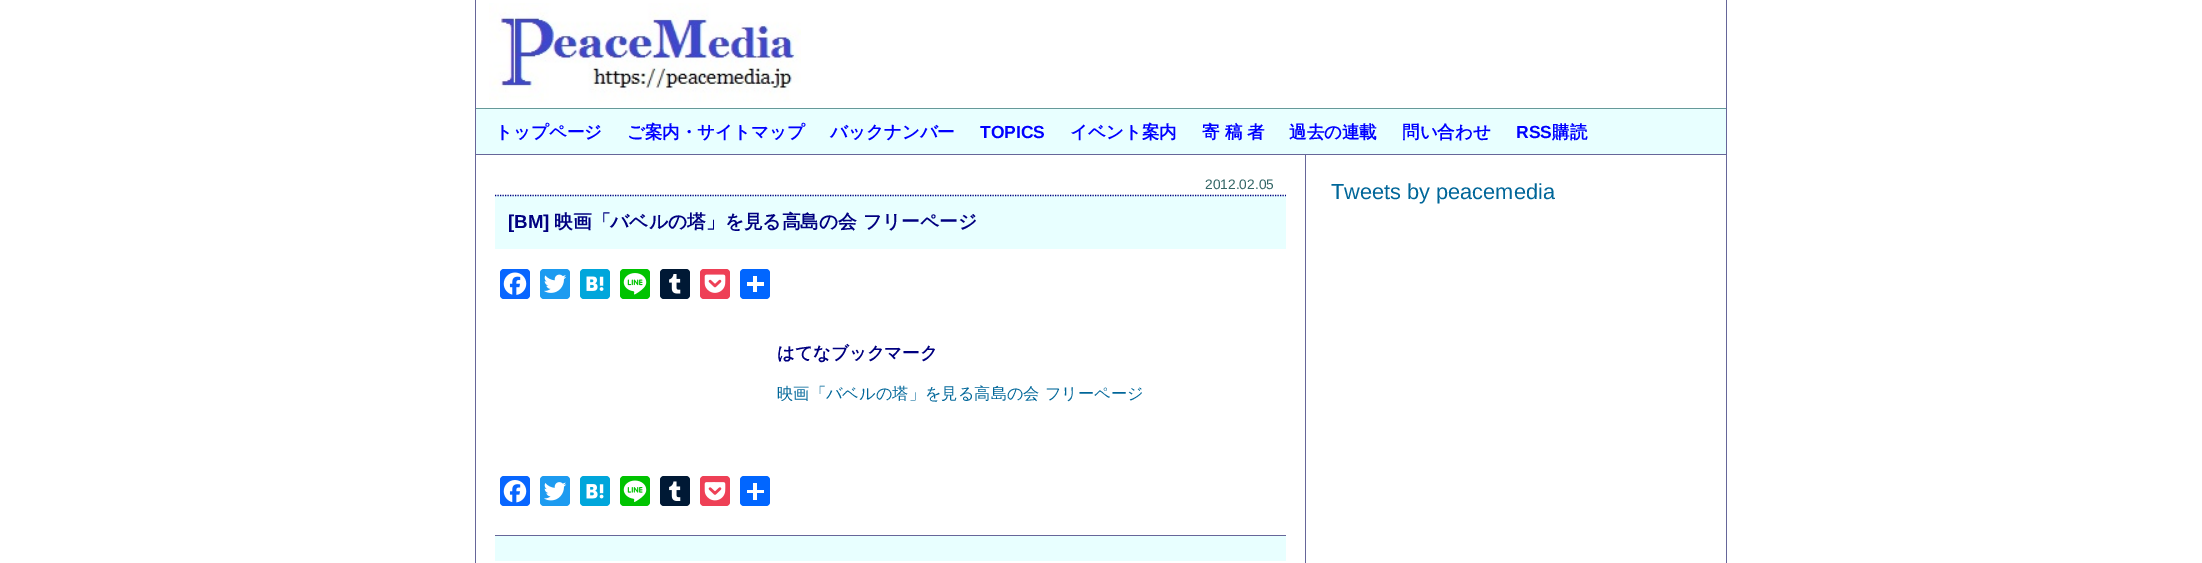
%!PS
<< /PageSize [2202 563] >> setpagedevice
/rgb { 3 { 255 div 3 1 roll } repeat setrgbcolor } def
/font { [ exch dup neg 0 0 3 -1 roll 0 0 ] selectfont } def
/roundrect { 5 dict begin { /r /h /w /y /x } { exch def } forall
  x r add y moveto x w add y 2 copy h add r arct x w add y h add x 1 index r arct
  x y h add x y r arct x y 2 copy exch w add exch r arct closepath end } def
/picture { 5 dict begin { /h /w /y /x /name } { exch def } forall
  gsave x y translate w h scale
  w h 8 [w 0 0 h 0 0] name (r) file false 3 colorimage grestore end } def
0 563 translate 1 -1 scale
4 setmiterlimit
255 255 255 rgb
0 0 2202 563 rectfill
102 102 153 rgb
1726 0 1 563 rectfill
475 0 1 563 rectfill
(img/1.rgb) 489 3 312 99 picture
[
  [476 109 1250 45 232 255 255]
  [476 108 1250 1 102 153 153]
  [476 154 1250 1 102 102 153]
  [1305 155 1 408 102 102 153]
  [495 195 791 54 232 255 255]
] { aload pop rgb rectfill } forall
0 0 128 rgb
1.2 setlinewidth
[1.25 1.25] 0 setdash
495 195.5 moveto 1286 195.5 lineto stroke
8 102 255 rgb
500 269 30 30 4 roundrect fill
(img/2.rgb) 503 272 24 23 picture
29 155 240 rgb
540 269 30 30 4 roundrect fill
(img/3.rgb) 544 274 23 19 picture
0 166 219 rgb
580 269 30 30 4 roundrect fill
(img/4.rgb) 586 276 18 15 picture
0 195 0 rgb
620 269 30 30 4 roundrect fill
(img/5.rgb) 623 273 24 22 picture
0 25 53 rgb
660 269 30 30 4 roundrect fill
(img/6.rgb) 669 274 12 20 picture
238 64 86 rgb
700 269 30 30 4 roundrect fill
(img/7.rgb) 704 274 22 19 picture
1 102 255 rgb
740 269 30 30 4 roundrect fill
255 255 255 rgb
753 276 4 16 rectfill
747 282 17 4 rectfill
8 102 255 rgb
500 476 30 30 4 roundrect fill
(img/8.rgb) 503 480 24 23 picture
29 155 240 rgb
540 476 30 30 4 roundrect fill
(img/9.rgb) 544 482 23 19 picture
0 166 219 rgb
580 476 30 30 4 roundrect fill
(img/10.rgb) 586 484 18 15 picture
0 195 0 rgb
620 476 30 30 4 roundrect fill
(img/11.rgb) 623 480 24 22 picture
0 25 53 rgb
660 476 30 30 4 roundrect fill
(img/12.rgb) 669 481 12 20 picture
238 64 86 rgb
700 476 30 30 4 roundrect fill
(img/13.rgb) 704 482 22 19 picture
1 102 255 rgb
740 476 30 30 4 roundrect fill
[
  [753 483 4 17 255 255 255]
  [747 490 17 3 255 255 255]
  [495 536 791 25 232 255 255]
  [495 535 791 1 102 102 153]
] { aload pop rgb rectfill } forall
/WenQuanYiZenHei-Bold 17.5 font
0 0 255 rgb
[
  [(トップページ) 495 138]
  [(ご案内・サイトマップ) 627 138]
  [(バックナンバー) 830 138]
] { aload pop moveto show } forall
/LiberationSans-Bold 17.5 font
980 138 moveto (TOPICS) show
/WenQuanYiZenHei-Bold 17.5 font
[
  [(イベント案内) 1070 138]
  [(寄 稿 者) 1202 138]
  [(過去の連載) 1289 138]
  [(問い合わせ) 1402 138]
] { aload pop moveto show } forall
/LiberationSans-Bold 17.5 font
1516 138 moveto (RSS) show
/WenQuanYiZenHei-Bold 17.5 font
1552 138 moveto (購読) show
/LiberationSans-Regular 13.75 font
51 102 102 rgb
1205 189 moveto (2012.02.05) show
/LiberationSans-Bold 18.75 font
0 0 128 rgb
508 228 moveto ([BM]) show
/WenQuanYiZenHei-Bold 18.75 font
554 228 moveto (映画「バベルの塔」を見る高島の会 フリーページ) show
/WenQuanYiZenHei-Bold 17.5 font
777 359 moveto (はてなブックマーク) show
/WenQuanYiZenHei-Medium 16.25 font
0 102 153 rgb
777 399 moveto (映画「バベルの塔」を見る高島の会 フリーページ) show
/LiberationSans-Regular 21.75 font
1331 199 moveto (Tweets by peacemedia) show
showpage
